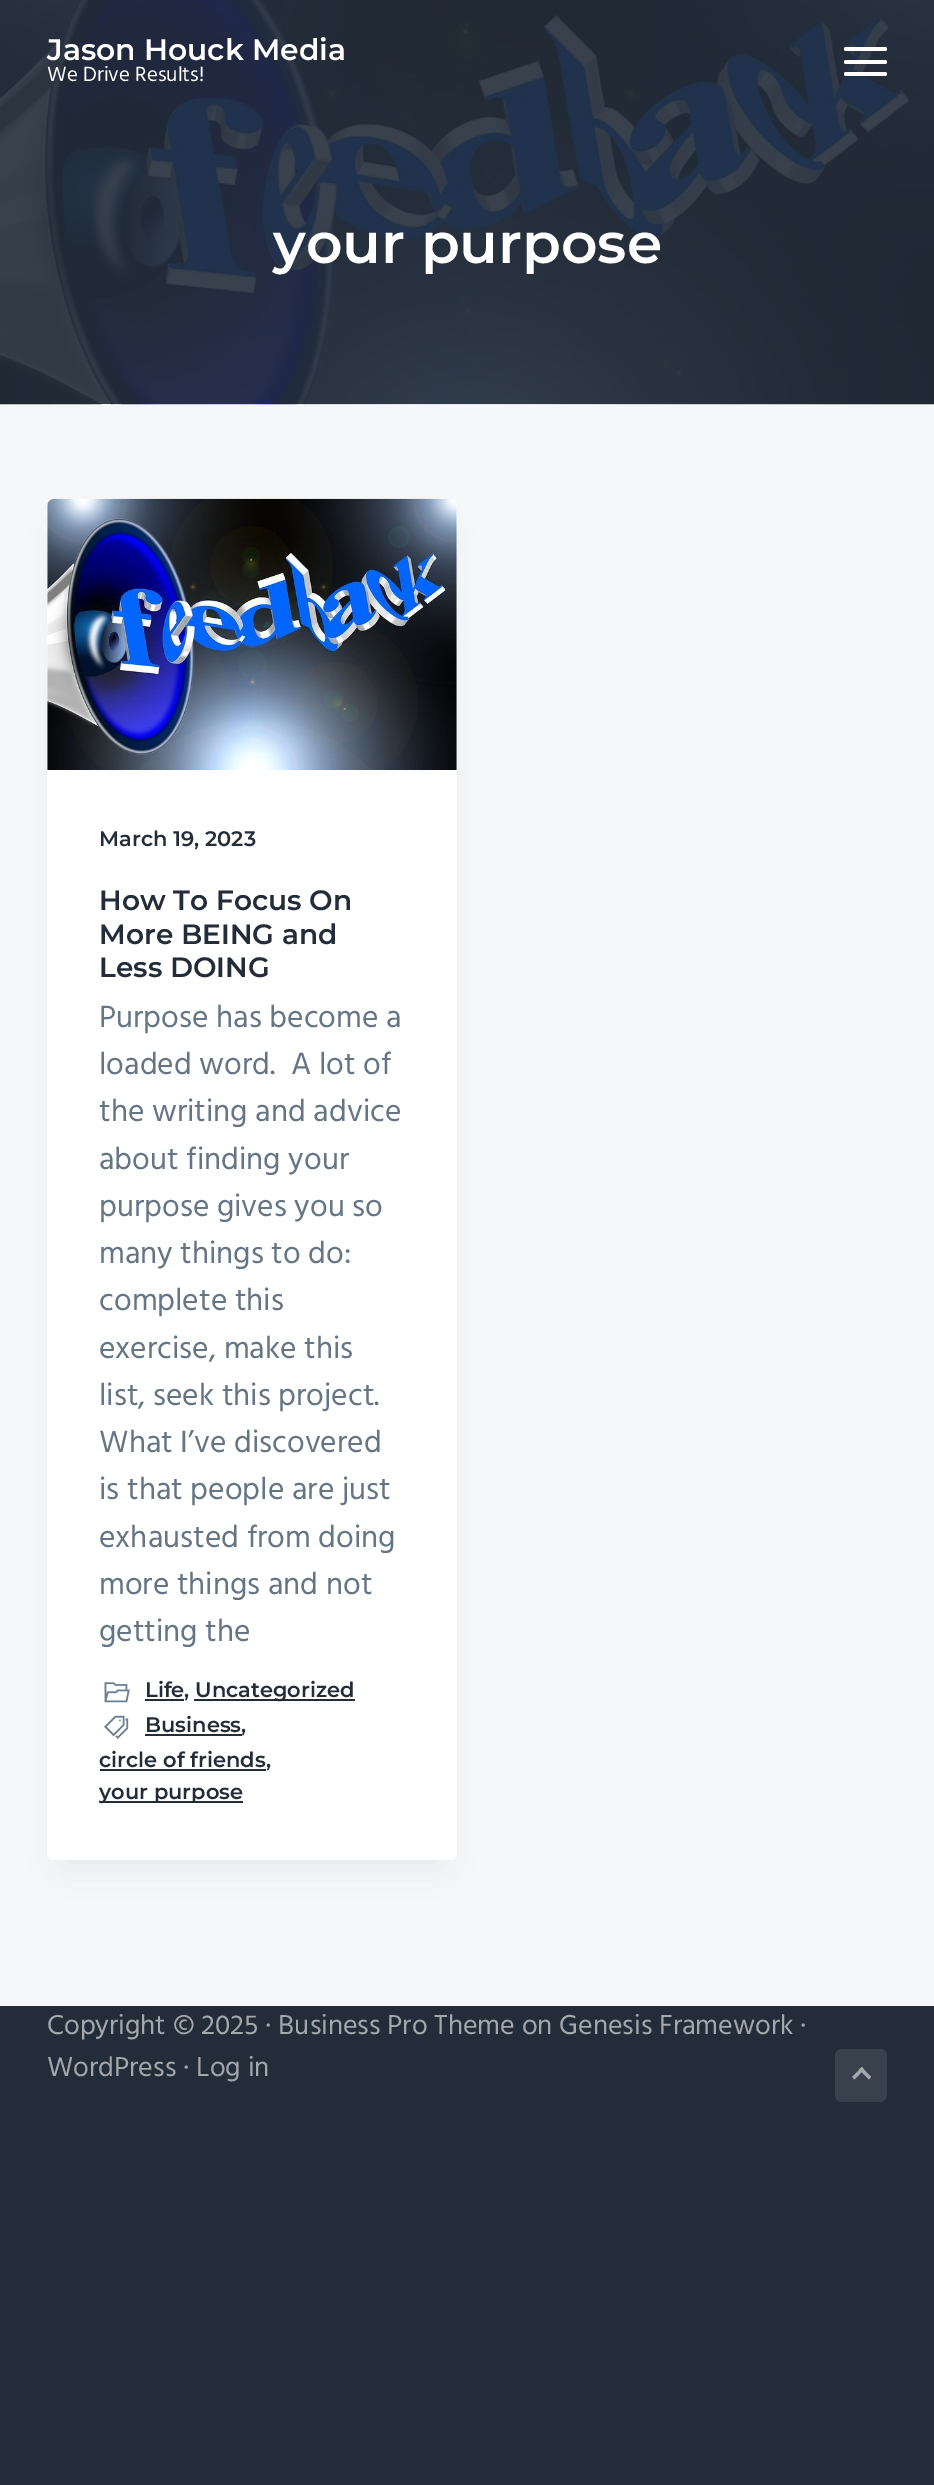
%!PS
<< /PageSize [934 2485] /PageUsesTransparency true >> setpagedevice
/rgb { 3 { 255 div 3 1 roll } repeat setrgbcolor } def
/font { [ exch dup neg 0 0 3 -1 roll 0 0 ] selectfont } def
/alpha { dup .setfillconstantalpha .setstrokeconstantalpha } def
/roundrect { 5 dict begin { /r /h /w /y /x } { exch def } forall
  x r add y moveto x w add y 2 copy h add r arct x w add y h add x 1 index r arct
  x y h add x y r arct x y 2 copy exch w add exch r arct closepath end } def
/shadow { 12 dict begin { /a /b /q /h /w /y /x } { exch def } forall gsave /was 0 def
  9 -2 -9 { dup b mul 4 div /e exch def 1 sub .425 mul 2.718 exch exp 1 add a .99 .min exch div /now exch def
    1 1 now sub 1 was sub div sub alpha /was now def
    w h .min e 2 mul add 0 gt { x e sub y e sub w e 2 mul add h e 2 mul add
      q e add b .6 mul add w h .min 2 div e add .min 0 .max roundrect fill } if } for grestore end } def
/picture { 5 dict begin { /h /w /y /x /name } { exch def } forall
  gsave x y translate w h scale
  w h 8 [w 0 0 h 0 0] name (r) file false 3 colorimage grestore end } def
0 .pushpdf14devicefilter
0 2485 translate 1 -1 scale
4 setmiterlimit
35 44 57 rgb
0 0 934 2485 rectfill
246 247 248 rgb
0 404 934 1602 rectfill
(img/1.rgb) 0 0 934 405 picture
255 255 255 rgb
844 60 43 4 2 roundrect fill
844 47 43 4 2 roundrect fill
844 72 43 4 2 roundrect fill
35 44 57 rgb
65 534 374 1326 0 17.5 0.1 shadow
255 255 255 rgb
47 499 410 1361 7 roundrect fill
(img/2.rgb) 47 498 410 272 picture
(img/3.rgb) 104 1682 26 21 picture
35 44 57 rgb
145 1699 39 2 rectfill
194 1699 161 2 rectfill
(img/4.rgb) 104 1715 25 24 picture
[
  [145 1734 97 2 35 44 57]
  [100 1769 166 2 35 44 57]
  [100 1801 143 2 35 44 57]
] { aload pop rgb rectfill } forall
57 65 77 rgb
835 2049 52 53 7 roundrect fill
164 168 172 rgb
852 2077 moveto 862 2067 lineto 864 2069.5 lineto 854.5 2079.5 lineto closepath fill
861.5 2067 moveto 871 2077 lineto 869 2079.5 lineto 859 2069.5 lineto closepath fill
/Montserrat-Thin 29.75 font
255 255 255 rgb
47 60 moveto (Jason Houck Media) show
/Hind-Regular 21 font
47 81 moveto (We Drive Results!) show
/Montserrat-Thin 56.75 font
273 263 moveto (your purpose) show
/Montserrat-Thin 21 font
35 44 57 rgb
99 846 moveto (March 19, 2023) show
/Montserrat-Thin 28 font
[
  [(How To Focus On) 99 910]
  [(More BEING and) 99 944]
  [(Less DOING) 99 977]
] { aload pop moveto show } forall
/Hind-Regular 31.5 font
100 117 133 rgb
[
  [(Purpose has become a) 99 1027]
  [(loaded word.) 99 1074]
  [(A lot of) 291 1074]
  [(the writing and advice) 99 1121]
  [(about finding your) 99 1169]
  [(purpose gives you so) 99 1216]
  [(many things to do:) 99 1263]
  [(complete this) 99 1310]
  [(exercise, make this) 99 1358]
  [(list, seek this project.) 99 1405]
  [(What I’ve discovered) 99 1452]
  [(is that people are just) 99 1499]
  [(exhausted from doing) 99 1547]
  [(more things and not) 99 1594]
  [(getting the) 99 1641]
] { aload pop moveto show } forall
/Montserrat-Thin 21 font
35 44 57 rgb
[
  [(Life,) 145 1697]
  [(Uncategorized) 195 1697]
  [(Business,) 145 1732]
  [(circle of friends,) 99 1767]
  [(your purpose) 99 1799]
] { aload pop moveto show } forall
/Hind-Regular 28 font
164 168 172 rgb
47 2034 moveto (Copyright © 2025 · Business Pro Theme on Genesis Framework ·) show
47 2076 moveto (WordPress · Log in) show
.poppdf14devicefilter showpage
